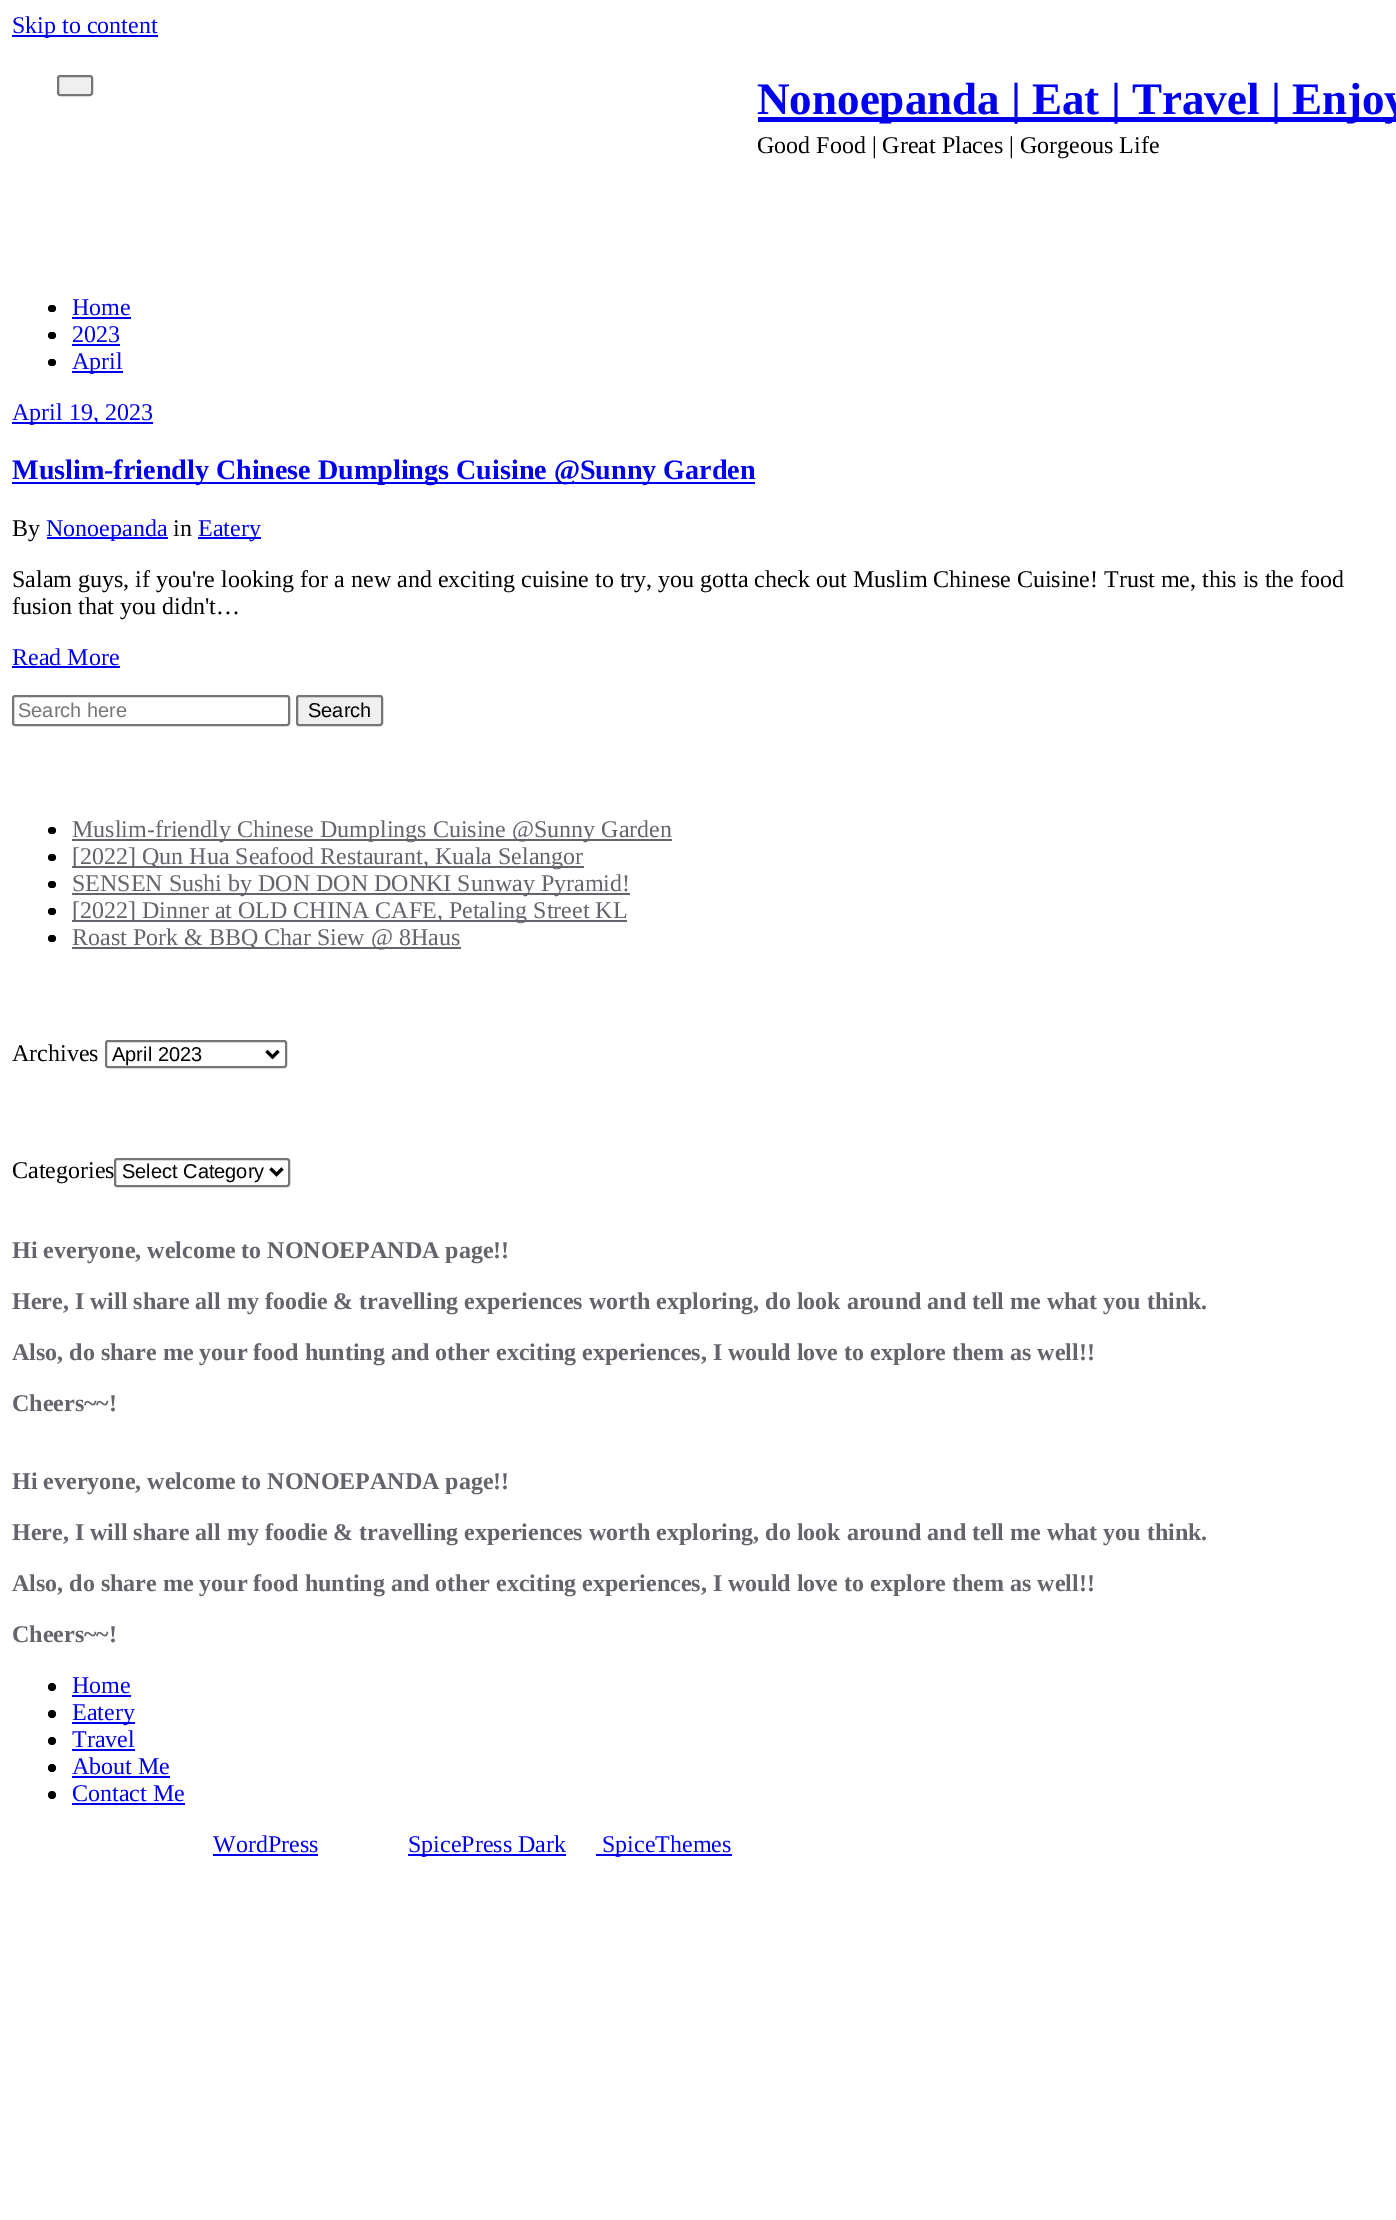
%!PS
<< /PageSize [1396 2220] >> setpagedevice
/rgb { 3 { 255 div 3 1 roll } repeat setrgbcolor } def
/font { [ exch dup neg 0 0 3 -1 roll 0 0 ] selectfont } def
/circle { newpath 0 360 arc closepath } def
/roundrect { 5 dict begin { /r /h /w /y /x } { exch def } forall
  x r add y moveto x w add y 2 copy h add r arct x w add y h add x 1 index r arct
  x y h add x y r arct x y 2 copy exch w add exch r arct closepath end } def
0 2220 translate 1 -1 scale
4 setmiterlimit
255 255 255 rgb
0 0 1396 2220 rectfill
0 0 238 rgb
12 35 146 2 rectfill
239 239 239 rgb
58 76 34 19 2 roundrect gsave fill grestore
118 118 118 rgb
2 setlinewidth
stroke
0 0 238 rgb
758 117 638 5 rectfill
0 0 0 rgb
48 305 8 7 3.5 roundrect fill
0 0 238 rgb
72 317 59 2 rectfill
0 0 0 rgb
48 332 8 7 3.5 roundrect fill
0 0 238 rgb
72 344 48 2 rectfill
0 0 0 rgb
48 359 8 7 3.5 roundrect fill
[
  [72 371 51 2 0 0 238]
  [12 422 141 2 0 0 238]
  [12 482 743 2 0 0 238]
  [47 537 121 2 0 0 238]
  [198 537 63 2 0 0 238]
  [12 666 108 2 0 0 238]
] { aload pop rgb rectfill } forall
118 118 118 rgb
13 696 276 29 2 roundrect stroke
239 239 239 rgb
297 696 85 29 2 roundrect gsave fill grestore
118 118 118 rgb
stroke
0 0 0 rgb
48 827 8 7 3.5 roundrect fill
100 100 109 rgb
72 839 600 2 rectfill
0 0 0 rgb
48 854 8 7 3.5 roundrect fill
100 100 109 rgb
72 866 512 2 rectfill
0 0 0 rgb
48 881 8 7 3.5 roundrect fill
100 100 109 rgb
72 893 558 2 rectfill
0 0 0 rgb
48 908 8 7 3.5 roundrect fill
100 100 109 rgb
72 920 555 2 rectfill
0 0 0 rgb
48 935 8 7 3.5 roundrect fill
100 100 109 rgb
72 947 389 2 rectfill
118 118 118 rgb
106 1041 180 26 2 roundrect stroke
0 0 0 rgb
3 setlinewidth
266.5 1051 moveto 272.5 1057 lineto 278.5 1051 lineto stroke
118 118 118 rgb
2 setlinewidth
115 1159 174 27 2 roundrect stroke
0 0 0 rgb
3 setlinewidth
270.5 1168.5 moveto 276.5 1174.5 lineto 282.5 1168.5 lineto stroke
52 1687 4 circle fill
0 0 238 rgb
72 1695 59 2 rectfill
0 0 0 rgb
52 1714 4 circle fill
0 0 238 rgb
72 1722 63 2 rectfill
0 0 0 rgb
52 1741 4 circle fill
0 0 238 rgb
72 1749 63 2 rectfill
0 0 0 rgb
52 1768 4 circle fill
0 0 238 rgb
72 1776 98 2 rectfill
0 0 0 rgb
52 1795 4 circle fill
[
  [72 1803 113 2 0 0 238]
  [213 1854 105 2 0 0 238]
  [408 1854 158 2 0 0 238]
  [596 1854 136 2 0 0 238]
] { aload pop rgb rectfill } forall
/LiberationSerif-Regular 24 font
12 33 moveto (Skip to content) show
/LiberationSerif-Bold 45 font
757 114 moveto (Nonoepanda | Eat | Travel | Enjoy) show
/LiberationSerif-Regular 24 font
0 0 0 rgb
757 153 moveto (Good Food | Great Places | Gorgeous Life) show
0 0 238 rgb
[
  [(Home) 72 315]
  [(2023) 72 342]
  [(April) 72 369]
  [(April 19, 2023) 12 420]
] { aload pop moveto show } forall
/LiberationSerif-Bold 28.1 font
12 479 moveto (Muslim-friendly Chinese Dumplings Cuisine @Sunny Garden) show
/LiberationSerif-Regular 24 font
0 0 0 rgb
12 536 moveto (By) show
0 0 238 rgb
46 536 moveto (Nonoepanda) show
0 0 0 rgb
173 536 moveto (in) show
0 0 238 rgb
198 536 moveto (Eatery) show
0 0 0 rgb
12 587 moveto (Salam guys, if you're looking for a new and exciting cuisine to try, you gotta check out Muslim Chinese Cuisine! Trust me, this is the food) show
12 614 moveto (fusion that you didn't…) show
0 0 238 rgb
12 665 moveto (Read More) show
/LiberationSans-Regular 20 font
117 117 117 rgb
18 717 moveto (Search here) show
0 0 0 rgb
308 717 moveto (Search) show
/LiberationSerif-Regular 24 font
100 100 109 rgb
[
  [(Muslim-friendly Chinese Dumplings Cuisine @Sunny Garden) 72 837]
  [([2022] Qun Hua Seafood Restaurant, Kuala Selangor) 72 864]
  [(SENSEN Sushi by DON DON DONKI Sunway Pyramid!) 72 891]
  [([2022] Dinner at OLD CHINA CAFE, Petaling Street KL) 72 918]
  [(Roast Pork & BBQ Char Siew @ 8Haus) 72 945]
] { aload pop moveto show } forall
0 0 0 rgb
12 1061 moveto (Archives) show
/LiberationSans-Regular 20 font
112 1061 moveto (April 2023) show
/LiberationSerif-Regular 24 font
12 1178 moveto (Categories) show
/LiberationSans-Regular 20 font
122 1178 moveto (Select Category) show
/LiberationSerif-Bold 24 font
100 100 109 rgb
[
  [(Hi everyone, welcome to NONOEPANDA page!!) 12 1258]
  [(Here, I will share all my foodie & travelling experiences worth exploring, do look around and tell me what you think.) 12 1309]
  [(Also, do share me your food hunting and other exciting experiences, I would love to explore them as well!!) 12 1360]
  [(Cheers~~!) 12 1411]
  [(Hi everyone, welcome to NONOEPANDA page!!) 12 1489]
  [(Here, I will share all my foodie & travelling experiences worth exploring, do look around and tell me what you think.) 12 1540]
  [(Also, do share me your food hunting and other exciting experiences, I would love to explore them as well!!) 12 1591]
  [(Cheers~~!) 12 1642]
] { aload pop moveto show } forall
/LiberationSerif-Regular 24 font
0 0 238 rgb
[
  [(Home) 72 1693]
  [(Eatery) 72 1720]
  [(Travel) 72 1747]
  [(About Me) 72 1774]
  [(Contact Me) 72 1801]
  [(WordPress) 213 1852]
  [(SpicePress Dark) 408 1852]
  [(SpiceThemes) 602 1852]
] { aload pop moveto show } forall
showpage
